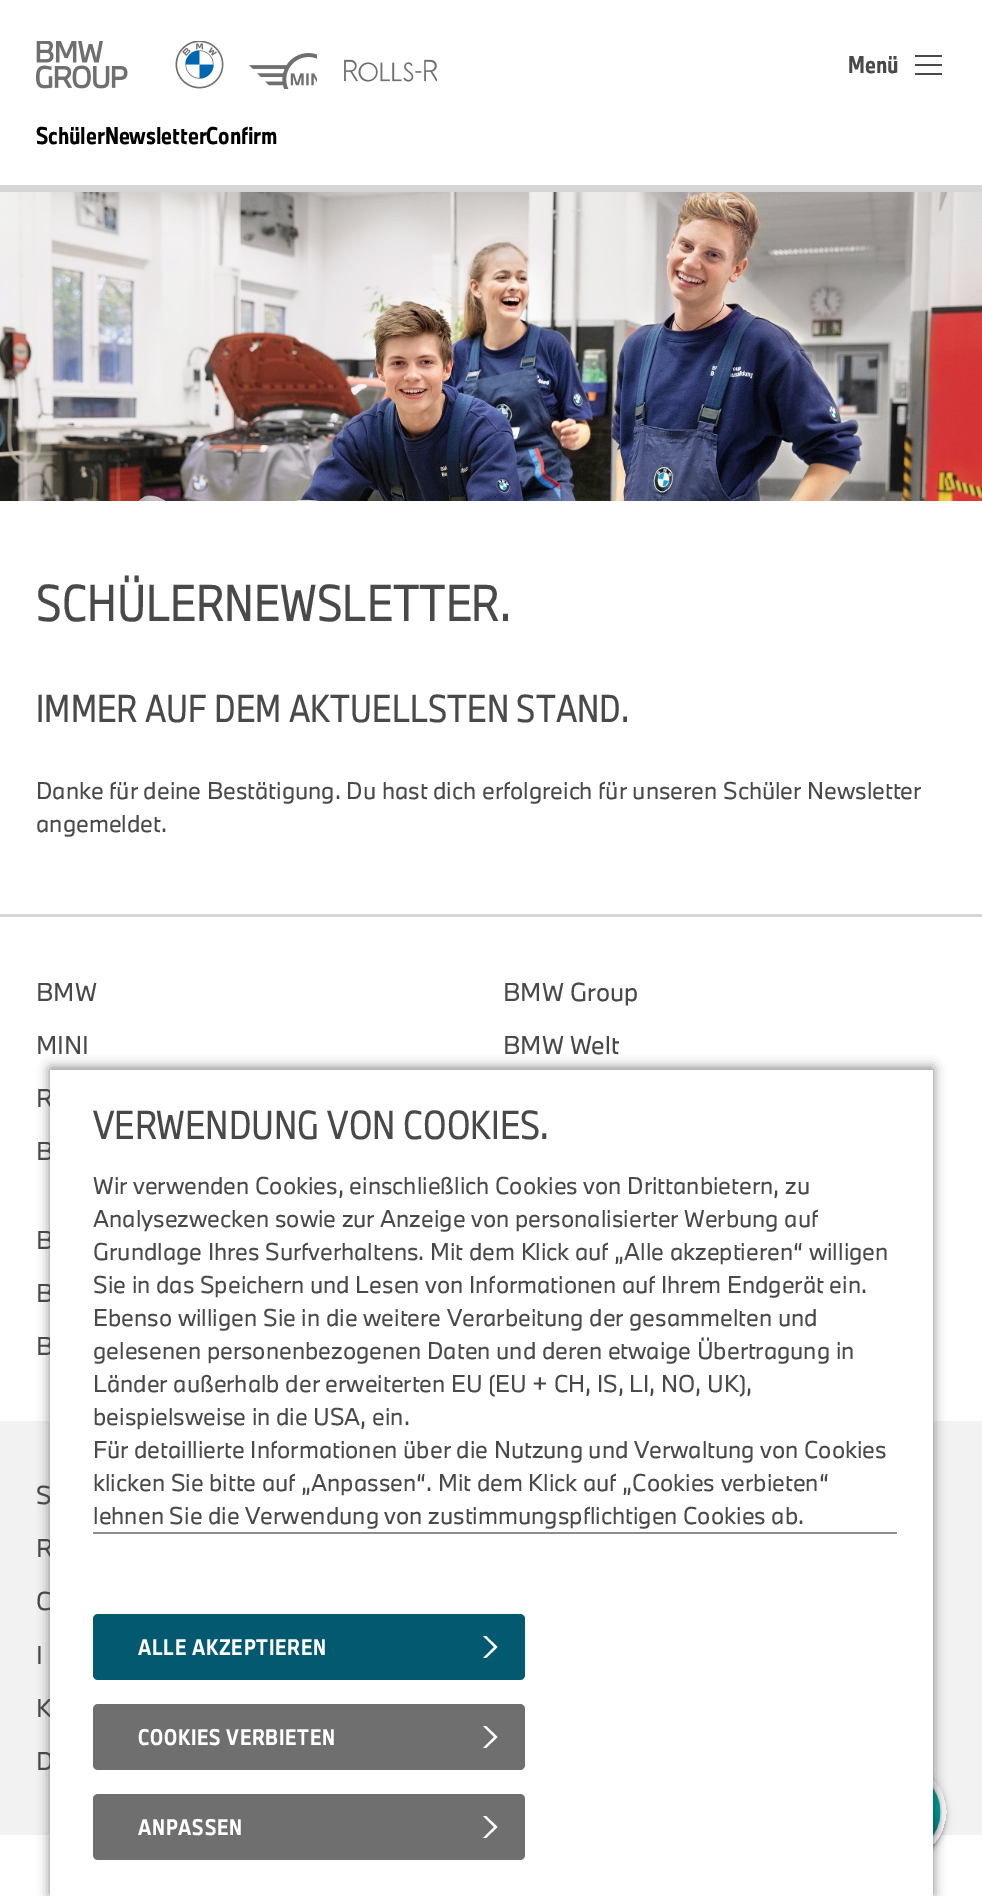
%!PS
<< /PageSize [982 1896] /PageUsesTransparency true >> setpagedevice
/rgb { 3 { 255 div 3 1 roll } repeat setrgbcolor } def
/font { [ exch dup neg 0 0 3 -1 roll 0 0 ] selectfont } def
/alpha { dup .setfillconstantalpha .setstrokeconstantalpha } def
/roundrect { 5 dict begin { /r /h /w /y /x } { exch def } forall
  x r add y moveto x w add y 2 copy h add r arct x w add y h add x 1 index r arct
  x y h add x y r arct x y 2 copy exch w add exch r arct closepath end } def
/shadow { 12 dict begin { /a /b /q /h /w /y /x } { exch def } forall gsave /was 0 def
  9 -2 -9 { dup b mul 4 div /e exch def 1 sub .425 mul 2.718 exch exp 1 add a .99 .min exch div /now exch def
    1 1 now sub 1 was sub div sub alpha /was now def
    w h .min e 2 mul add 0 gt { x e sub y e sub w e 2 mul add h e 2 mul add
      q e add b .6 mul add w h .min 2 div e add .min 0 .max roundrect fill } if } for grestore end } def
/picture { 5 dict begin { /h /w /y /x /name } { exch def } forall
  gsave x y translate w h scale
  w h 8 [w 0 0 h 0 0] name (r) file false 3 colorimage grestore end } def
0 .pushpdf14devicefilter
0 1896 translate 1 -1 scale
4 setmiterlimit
255 255 255 rgb
0 0 982 1896 rectfill
214 214 214 rgb
0 185 982 7 rectfill
(img/1.rgb) 36 41 92 48 picture
(img/2.rgb) 175 41 49 48 picture
(img/3.rgb) 249 53 68 36 picture
(img/4.rgb) 344 59 93 23 picture
[
  [915 64 27 2 73 73 73]
  [915 55 27 2 73 73 73]
  [915 73 27 2 73 73 73]
] { aload pop rgb rectfill } forall
(img/5.rgb) 0 192 982 309 picture
214 214 214 rgb
0 914 982 3 rectfill
242 242 242 rgb
0 1421 982 414 rectfill
gsave
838 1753 moveto 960 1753 lineto 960 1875 lineto 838 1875 lineto closepath 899 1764 moveto 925.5 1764 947 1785.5 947 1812 curveto 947 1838.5 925.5 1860 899 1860 curveto 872.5 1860 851 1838.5 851 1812 curveto 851 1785.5 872.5 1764 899 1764 curveto closepath eoclip newpath
0 0 0 rgb
851 1766 96 96 48 4 0.12 shadow
grestore
gsave
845 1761 moveto 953 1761 lineto 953 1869 lineto 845 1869 lineto closepath 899 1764 moveto 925.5 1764 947 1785.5 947 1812 curveto 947 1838.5 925.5 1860 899 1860 curveto 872.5 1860 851 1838.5 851 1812 curveto 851 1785.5 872.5 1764 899 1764 curveto closepath eoclip newpath
0 0 0 rgb
851 1767 96 96 48 1.5 0.14 shadow
grestore
gsave
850 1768 moveto 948 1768 lineto 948 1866 lineto 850 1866 lineto closepath 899 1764 moveto 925.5 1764 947 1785.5 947 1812 curveto 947 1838.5 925.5 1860 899 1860 curveto 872.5 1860 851 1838.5 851 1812 curveto 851 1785.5 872.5 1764 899 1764 curveto closepath eoclip newpath
0 0 0 rgb
854 1772 90 90 45 1 0.2 shadow
grestore
(img/6.rgb) 933 1785 9 59 picture
0 0 0 rgb
50 1068 883 827 0 6 0.5 shadow
/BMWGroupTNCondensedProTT-Bold 22.5 font
73 73 73 rgb
848 73 moveto (Menü) show
0 0 0 rgb
36 144 moveto (SchülerNewsletterConfirm) show
/BMWGroupTNCondensedProTT-Regular 48 font
73 73 73 rgb
36 621 moveto (SCHÜLERNEWSLETTER.) show
/BMWGroupTNCondensedProTT-Regular 36 font
36 722 moveto (IMMER AUF DEM AKTUELLSTEN STAND.) show
/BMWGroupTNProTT-Regular 22.5 font
36 799 moveto (Danke für deine Bestätigung. Du hast dich erfolgreich für unseren Schüler Newsletter) show
36 832 moveto (angemeldet.) show
/BMWGroupTNProTT-Regular 24 font
[
  [(BMW) 36 1001]
  [(MINI) 36 1054]
  [(R) 36 1107]
  [(B) 36 1160]
  [(BMW Group) 503 1001]
  [(BMW Welt) 503 1054]
  [(B) 36 1249]
  [(B) 36 1302]
  [(B) 36 1355]
  [(S) 36 1504]
  [(R) 36 1557]
  [(C) 36 1610]
  [(I) 36 1664]
  [(K) 36 1717]
  [(D) 36 1770]
] { aload pop moveto show } forall
255 255 255 rgb
50 1070 883 826 rectfill
/BMWGroupTNCondensedProTT-Regular 37.5 font
73 73 73 rgb
93 1139 moveto (VERWENDUNG VON COOKIES.) show
/BMWGroupTNProTT-Regular 22.5 font
[
  [(Wir verwenden Cookies, einschließlich Cookies von Drittanbietern, zu) 93 1194]
  [(Analysezwecken sowie zur Anzeige von personalisierter Werbung auf) 93 1227]
  [(Grundlage Ihres Surfverhaltens. Mit dem Klick auf „Alle akzeptieren“ willigen) 93 1260]
  [(Sie in das Speichern und Lesen von Informationen auf Ihrem Endgerät ein.) 93 1293]
  [(Ebenso willigen Sie in die weitere Verarbeitung der gesammelten und) 93 1326]
  [(gelesenen personenbezogenen Daten und deren etwaige Übertragung in) 93 1359]
  [(Länder außerhalb der erweiterten EU \(EU + CH, IS, LI, NO, UK\),) 93 1392]
  [(beispielsweise in die USA, ein.) 93 1425]
  [(Für detaillierte Informationen über die Nutzung und Verwaltung von Cookies) 93 1458]
  [(klicken Sie bitte auf „Anpassen“. Mit dem Klick auf „Cookies verbieten“) 93 1491]
  [(lehnen Sie die Verwendung von zustimmungspflichtigen Cookies ab.) 93 1524]
] { aload pop moveto show } forall
142 142 142 rgb
93 1532 804 2 rectfill
3 89 112 rgb
93 1614 432 66 5 roundrect fill
255 255 255 rgb
483 1658 moveto 494 1647 lineto 483 1636 lineto 486 1636 lineto 497.5 1647 lineto 486 1658 lineto closepath fill
/BMWGroupTNCondensedProTT-Bold 21 font
138 1655 moveto 0.75 0 (ALLE AKZEPTIEREN) ashow
111 111 111 rgb
93 1704 432 66 5 roundrect fill
255 255 255 rgb
483 1748 moveto 494 1737 lineto 483 1726 lineto 486 1726 lineto 497.5 1737 lineto 486 1748 lineto closepath fill
138 1745 moveto 0.75 0 (COOKIES VERBIETEN) ashow
111 111 111 rgb
93 1794 432 66 5 roundrect fill
255 255 255 rgb
483 1838 moveto 494 1827 lineto 483 1816 lineto 486 1816 lineto 497.5 1827 lineto 486 1838 lineto closepath fill
138 1835 moveto 0.75 0 (ANPASSEN) ashow
.poppdf14devicefilter showpage
